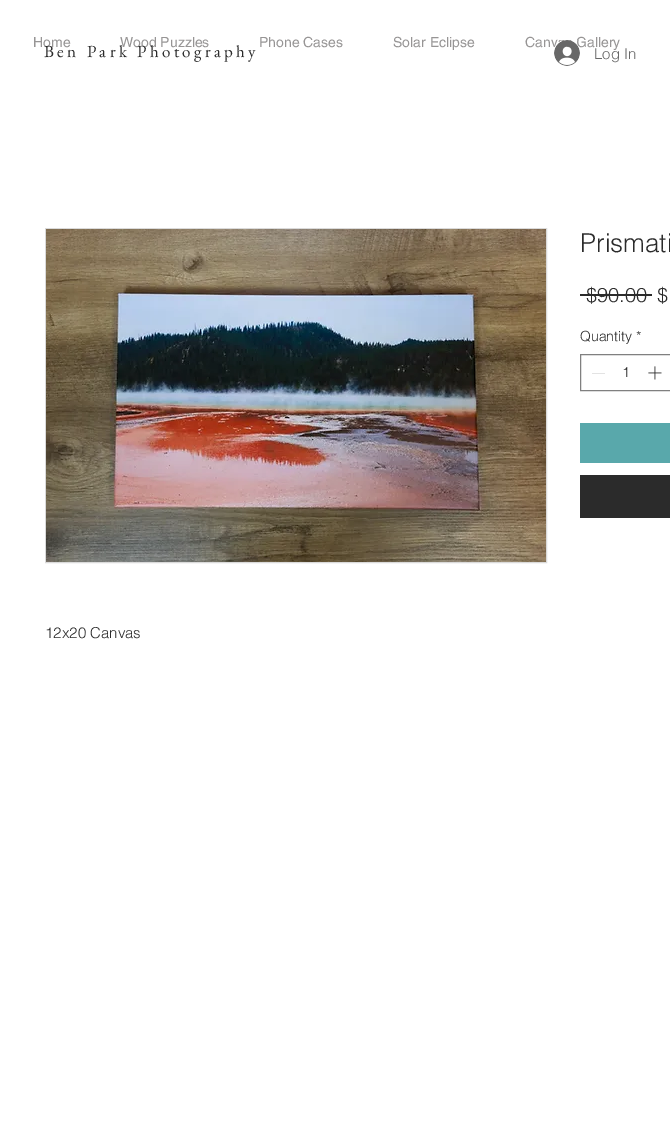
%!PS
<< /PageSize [670 1128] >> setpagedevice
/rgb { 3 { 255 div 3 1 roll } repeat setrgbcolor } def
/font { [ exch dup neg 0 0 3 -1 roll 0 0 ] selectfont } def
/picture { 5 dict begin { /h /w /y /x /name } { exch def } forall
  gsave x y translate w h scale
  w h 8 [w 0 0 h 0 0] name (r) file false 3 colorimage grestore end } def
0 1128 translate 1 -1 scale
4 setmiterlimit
255 255 255 rgb
0 0 670 1128 rectfill
43 43 43 rgb
580 294 72 2 rectfill
128 128 128 rgb
580.5 354.5 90 36 rectstroke
227 227 227 rgb
592 373 13 1 rectfill
(img/2.rgb) 648 366 14 14 picture
89 168 171 rgb
580 423 90 40 rectfill
43 43 43 rgb
580 475 90 43 rectfill
218 218 218 rgb
45.5 228.5 501 334 rectstroke
(img/3.rgb) 46 229 500 333 picture
/helvetica-Regular 14 font
151 149 149 rgb
[
  [(Home) 33 47]
  [(Wood Puzzles) 120 47]
  [(Phone Cases) 259 47]
  [(Solar Eclipse) 393 47]
  [(Canv) 525 47]
  [(Gallery) 576 47]
] { aload pop moveto show } forall
/EBGaramond-Regular 17 font
43 43 43 rgb
44 57 moveto 3.4 0 (Ben Park Photography) ashow
(img/1.rgb) 554 40 26 26 picture
/helvetica-Light 15 font
104 104 104 rgb
594 59 moveto (Log In) show
/helvetica-Light 26 font
43 43 43 rgb
580 252 moveto (Prismati) show
/helvetica-Light 20 font
586 302 moveto ($90.00) show
657 302 moveto ($) show
/helvetica-Light 14 font
580 341 moveto (Quantity *) show
622 377 moveto (1) show
/helvetica-Light 15 font
45 638 moveto (12x20 Canvas) show
showpage
